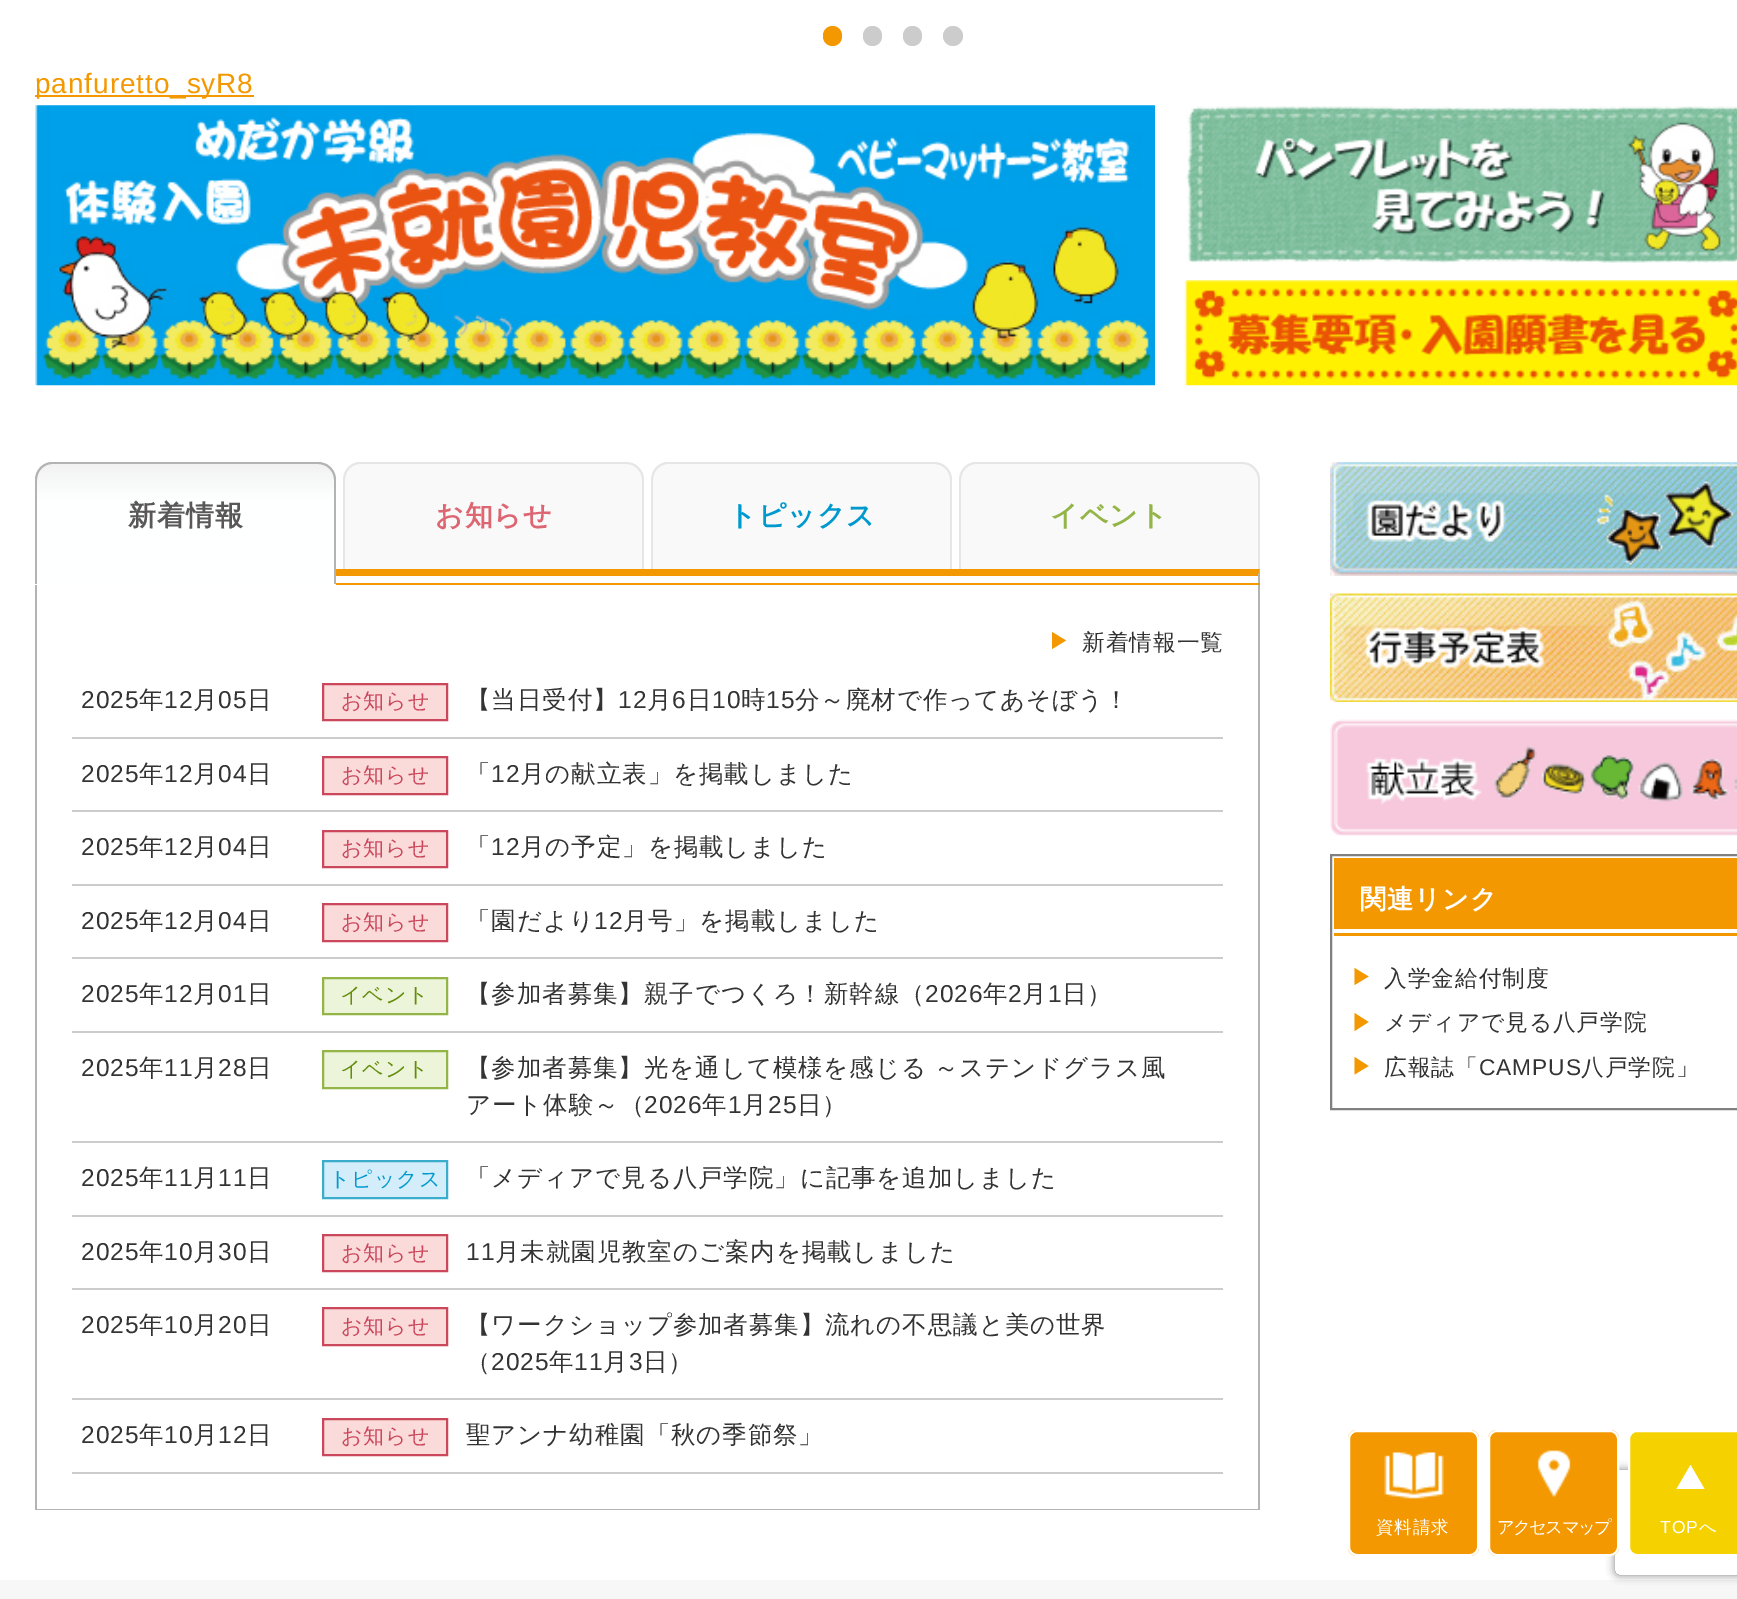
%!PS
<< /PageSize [1737 1599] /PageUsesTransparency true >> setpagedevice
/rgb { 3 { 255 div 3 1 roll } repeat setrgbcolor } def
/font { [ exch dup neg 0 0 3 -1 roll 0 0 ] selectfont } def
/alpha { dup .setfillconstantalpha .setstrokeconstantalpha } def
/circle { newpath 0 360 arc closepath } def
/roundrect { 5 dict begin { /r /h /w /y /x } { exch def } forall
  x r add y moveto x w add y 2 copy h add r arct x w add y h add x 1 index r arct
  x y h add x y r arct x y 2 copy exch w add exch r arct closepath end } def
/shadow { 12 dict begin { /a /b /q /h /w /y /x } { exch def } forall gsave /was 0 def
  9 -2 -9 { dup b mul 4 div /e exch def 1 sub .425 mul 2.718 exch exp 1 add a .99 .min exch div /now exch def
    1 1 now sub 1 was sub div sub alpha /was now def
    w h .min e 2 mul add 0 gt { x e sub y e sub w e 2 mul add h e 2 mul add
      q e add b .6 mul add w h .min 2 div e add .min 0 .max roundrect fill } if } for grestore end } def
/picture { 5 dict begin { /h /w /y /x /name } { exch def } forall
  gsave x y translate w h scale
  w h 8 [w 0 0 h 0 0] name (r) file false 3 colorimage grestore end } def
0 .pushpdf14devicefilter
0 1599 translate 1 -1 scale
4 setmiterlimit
255 255 255 rgb
0 0 1737 1599 rectfill
243 152 0 rgb
823 26 19 20 9.5 roundrect fill
204 204 204 rgb
863 26 19 20 9.5 roundrect fill
903 26 19 20 9.5 roundrect fill
953 36 10 circle fill
243 152 0 rgb
35 95 219 2 rectfill
(img/1.rgb) 35 105 1120 281 picture
(img/2.rgb) 1186 106 551 157 picture
(img/3.rgb) 1184 280 553 106 picture
35 569 moveto 1260 569 lineto 1258 576 lineto 37 576 lineto closepath fill
gsave
53 462 moveto 318 462 lineto 328 462 336 470 336 480 curveto 336 585 lineto 35 585 lineto 35 480 lineto 35 470 43 462 53 462 curveto closepath clip newpath
gsave 35 464 moveto 336 464 lineto 336 585 lineto 35 585 lineto closepath clip newpath
<< /ShadingType 2 /ColorSpace /DeviceRGB /Coords [186 464 186 585] /Extend [true true] /Function << /FunctionType 3 /Domain [0 1] /Functions [<< /FunctionType 2 /Domain [0 1] /C0 [0.949 0.949 0.949] /C1 [0.996 1 1] /N 1 >> << /FunctionType 2 /Domain [0 1] /C0 [0.996 1 1] /C1 [0.996 1 1] /N 1 >>] /Bounds [0.3] /Encode [0 1 0 1] >> >> shfill grestore
grestore
179 179 179 rgb
52 462 moveto 318 462 lineto 328 462 336 470 336 480 curveto 336 584 lineto 35 584 lineto 35 480 lineto 35 470 43 462 52 462 curveto closepath 52 464 moveto 318 464 lineto 327 464 334 471 334 480 curveto 334 584 lineto 37 584 lineto 37 480 lineto 37 471 44 464 52 464 curveto closepath eofill
249 249 249 rgb
361 462 moveto 626 462 lineto 636 462 644 470 644 480 curveto 644 569 lineto 343 569 lineto 343 480 lineto 343 470 351 462 361 462 curveto closepath fill
230 230 230 rgb
360 462 moveto 626 462 lineto 636 462 644 470 644 480 curveto 644 569 lineto 343 569 lineto 343 480 lineto 343 470 351 462 360 462 curveto closepath 360 464 moveto 626 464 lineto 635 464 642 471 642 480 curveto 642 569 lineto 345 569 lineto 345 480 lineto 345 471 352 464 360 464 curveto closepath eofill
249 249 249 rgb
669 462 moveto 934 462 lineto 944 462 952 470 952 480 curveto 952 569 lineto 651 569 lineto 651 480 lineto 651 470 659 462 669 462 curveto closepath fill
230 230 230 rgb
668 462 moveto 934 462 lineto 944 462 952 470 952 480 curveto 952 569 lineto 651 569 lineto 651 480 lineto 651 470 659 462 668 462 curveto closepath 668 464 moveto 934 464 lineto 943 464 950 471 950 480 curveto 950 569 lineto 653 569 lineto 653 480 lineto 653 471 660 464 668 464 curveto closepath eofill
249 249 249 rgb
977 462 moveto 1242 462 lineto 1252 462 1260 470 1260 480 curveto 1260 569 lineto 959 569 lineto 959 480 lineto 959 470 967 462 977 462 curveto closepath fill
230 230 230 rgb
976 462 moveto 1242 462 lineto 1252 462 1260 470 1260 480 curveto 1260 569 lineto 959 569 lineto 959 480 lineto 959 470 967 462 976 462 curveto closepath 976 464 moveto 1242 464 lineto 1251 464 1258 471 1258 480 curveto 1258 569 lineto 961 569 lineto 961 480 lineto 961 471 968 464 976 464 curveto closepath eofill
179 179 179 rgb
1260 569 moveto 1260 584.5 lineto 1258 583 lineto 1258 576 lineto closepath fill
[
  [336 583 924 2 243 152 0]
  [1258 585 2 925 179 179 179]
  [35 1509 1225 1 179 179 179]
  [35 585 2 925 179 179 179]
] { aload pop rgb rectfill } forall
243 152 0 rgb
1052 649 moveto 1052 632 lineto 1066 640.5 lineto closepath fill
204 204 204 rgb
72 737 1151 2 rectfill
250 219 218 rgb
323 684 moveto 447 684 lineto 447 720 lineto 323 720 lineto closepath gsave fill grestore
202 71 92 rgb
2 setlinewidth
stroke
204 204 204 rgb
72 810 1151 2 rectfill
250 219 218 rgb
323 757 moveto 447 757 lineto 447 794 lineto 323 794 lineto closepath gsave fill grestore
202 71 92 rgb
stroke
204 204 204 rgb
72 884 1151 2 rectfill
250 219 218 rgb
323 831 moveto 447 831 lineto 447 867 lineto 323 867 lineto closepath gsave fill grestore
202 71 92 rgb
stroke
204 204 204 rgb
72 957 1151 2 rectfill
250 219 218 rgb
323 904 moveto 447 904 lineto 447 941 lineto 323 941 lineto closepath gsave fill grestore
202 71 92 rgb
stroke
204 204 204 rgb
72 1031 1151 2 rectfill
236 244 217 rgb
323 978 moveto 447 978 lineto 447 1014 lineto 323 1014 lineto closepath gsave fill grestore
147 180 71 rgb
stroke
204 204 204 rgb
72 1141 1151 2 rectfill
236 244 217 rgb
323 1051 moveto 447 1051 lineto 447 1088 lineto 323 1088 lineto closepath gsave fill grestore
147 180 71 rgb
stroke
204 204 204 rgb
72 1215 1151 2 rectfill
211 237 251 rgb
323 1161 moveto 447 1161 lineto 447 1198 lineto 323 1198 lineto closepath gsave fill grestore
58 173 204 rgb
stroke
204 204 204 rgb
72 1288 1151 2 rectfill
250 219 218 rgb
323 1235 moveto 447 1235 lineto 447 1271 lineto 323 1271 lineto closepath gsave fill grestore
202 71 92 rgb
stroke
204 204 204 rgb
72 1398 1151 2 rectfill
250 219 218 rgb
323 1308 moveto 447 1308 lineto 447 1345 lineto 323 1345 lineto closepath gsave fill grestore
202 71 92 rgb
stroke
204 204 204 rgb
72 1472 1151 2 rectfill
250 219 218 rgb
323 1419 moveto 447 1419 lineto 447 1455 lineto 323 1455 lineto closepath gsave fill grestore
202 71 92 rgb
stroke
(img/4.rgb) 1330 462 407 114 picture
(img/5.rgb) 1330 593 407 109 picture
(img/6.rgb) 1330 719 407 117 picture
128 128 128 rgb
1331 855 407 254 rectstroke
243 152 0 rgb
1334 858 403 78 rectfill
255 255 255 rgb
1334 929 403 4 rectfill
243 152 0 rgb
1354.5 985 moveto 1354.5 968 lineto 1368.5 976.5 lineto closepath fill
1354.5 1031 moveto 1354.5 1013 lineto 1368.5 1022 lineto closepath fill
1354.5 1074.5 moveto 1354.5 1057 lineto 1368.5 1066 lineto closepath fill
247 247 247 rgb
0 1580 1737 19 rectfill
gsave
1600 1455 moveto 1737 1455 lineto 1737 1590 lineto 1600 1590 lineto closepath 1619 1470 moveto 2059 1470 lineto 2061 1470 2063 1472 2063 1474 curveto 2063 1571 lineto 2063 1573 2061 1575 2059 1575 curveto 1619 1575 lineto 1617 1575 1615 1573 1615 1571 curveto 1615 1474 lineto 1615 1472 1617 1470 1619 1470 curveto closepath eoclip newpath
128 128 128 rgb
1615 1470 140 105 4 4.5 1 shadow
grestore
243 152 0 rgb
1348 1430 131 126 9 roundrect fill
(img/7.rgb) 1384 1452 60 47 picture
255 255 255 rgb
1349 1431 129 124 8 roundrect stroke
243 152 0 rgb
1488 1430 131 126 9 roundrect fill
(img/8.rgb) 1537 1450 34 47 picture
255 255 255 rgb
1489 1431 129 124 8 roundrect stroke
245 209 0 rgb
1629 1431 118 124 8 roundrect gsave fill grestore
255 255 255 rgb
stroke
1704.5 1489 moveto 1676.5 1489 lineto 1690.5 1465 lineto closepath fill
/LiberationSans-Regular 28 font
243 152 0 rgb
35 93 moveto 0.9 0 (panfuretto_syR8) ashow
/WenQuanYiZenHei-Bold 28 font
89 87 87 rgb
128 525 moveto 0.9 0 (新着情報) ashow
221 102 115 rgb
435 525 moveto 0.9 0 (お知らせ) ashow
0 153 206 rgb
728 525 moveto 0.9 0 (トピックス) ashow
147 180 71 rgb
1050 525 moveto 0.9 0 (イベント) ashow
/WenQuanYiZenHei-Medium 22.75 font
51 51 51 rgb
1082 650 moveto 0.9 0 (新着情報一覧) ashow
/LiberationSans-Regular 24.5 font
81 708 moveto 0.9 0 (2025) ashow
/WenQuanYiZenHei-Medium 24.5 font
139 708 moveto 0.9 0 (年) ashow
/LiberationSans-Regular 24.5 font
164 708 moveto 0.9 0 (12) ashow
/WenQuanYiZenHei-Medium 24.5 font
193 708 moveto 0.9 0 (月) ashow
/LiberationSans-Regular 24.5 font
218 708 moveto 0.9 0 (05) ashow
/WenQuanYiZenHei-Medium 24.5 font
247 708 moveto 0.9 0 (日) ashow
/WenQuanYiZenHei-Medium 21 font
202 71 92 rgb
341 708 moveto 0.9 0 (お知らせ) ashow
/WenQuanYiZenHei-Medium 24.5 font
51 51 51 rgb
466 708 moveto 0.9 0 (【当日受付】) ashow
/LiberationSans-Regular 24.5 font
618 708 moveto 0.9 0 (12) ashow
/WenQuanYiZenHei-Medium 24.5 font
647 708 moveto 0.9 0 (月) ashow
/LiberationSans-Regular 24.5 font
672 708 moveto 0.9 0 (6) ashow
/WenQuanYiZenHei-Medium 24.5 font
687 708 moveto 0.9 0 (日) ashow
/LiberationSans-Regular 24.5 font
712 708 moveto 0.9 0 (10) ashow
/WenQuanYiZenHei-Medium 24.5 font
741 708 moveto 0.9 0 (時) ashow
/LiberationSans-Regular 24.5 font
766 708 moveto 0.9 0 (15) ashow
/WenQuanYiZenHei-Medium 24.5 font
795 708 moveto 0.9 0 (分～廃材で作ってあそぼう！) ashow
/LiberationSans-Regular 24.5 font
81 782 moveto 0.9 0 (2025) ashow
/WenQuanYiZenHei-Medium 24.5 font
139 782 moveto 0.9 0 (年) ashow
/LiberationSans-Regular 24.5 font
164 782 moveto 0.9 0 (12) ashow
/WenQuanYiZenHei-Medium 24.5 font
193 782 moveto 0.9 0 (月) ashow
/LiberationSans-Regular 24.5 font
218 782 moveto 0.9 0 (04) ashow
/WenQuanYiZenHei-Medium 24.5 font
247 782 moveto 0.9 0 (日) ashow
/WenQuanYiZenHei-Medium 21 font
202 71 92 rgb
341 782 moveto 0.9 0 (お知らせ) ashow
/WenQuanYiZenHei-Medium 24.5 font
51 51 51 rgb
466 782 moveto 0.9 0 (「) ashow
/LiberationSans-Regular 24.5 font
491 782 moveto 0.9 0 (12) ashow
/WenQuanYiZenHei-Medium 24.5 font
520 782 moveto 0.9 0 (月の献立表」を掲載しました) ashow
/LiberationSans-Regular 24.5 font
81 855 moveto 0.9 0 (2025) ashow
/WenQuanYiZenHei-Medium 24.5 font
139 855 moveto 0.9 0 (年) ashow
/LiberationSans-Regular 24.5 font
164 855 moveto 0.9 0 (12) ashow
/WenQuanYiZenHei-Medium 24.5 font
193 855 moveto 0.9 0 (月) ashow
/LiberationSans-Regular 24.5 font
218 855 moveto 0.9 0 (04) ashow
/WenQuanYiZenHei-Medium 24.5 font
247 855 moveto 0.9 0 (日) ashow
/WenQuanYiZenHei-Medium 21 font
202 71 92 rgb
341 855 moveto 0.9 0 (お知らせ) ashow
/WenQuanYiZenHei-Medium 24.5 font
51 51 51 rgb
466 855 moveto 0.9 0 (「) ashow
/LiberationSans-Regular 24.5 font
491 855 moveto 0.9 0 (12) ashow
/WenQuanYiZenHei-Medium 24.5 font
520 855 moveto 0.9 0 (月の予定」を掲載しました) ashow
/LiberationSans-Regular 24.5 font
81 929 moveto 0.9 0 (2025) ashow
/WenQuanYiZenHei-Medium 24.5 font
139 929 moveto 0.9 0 (年) ashow
/LiberationSans-Regular 24.5 font
164 929 moveto 0.9 0 (12) ashow
/WenQuanYiZenHei-Medium 24.5 font
193 929 moveto 0.9 0 (月) ashow
/LiberationSans-Regular 24.5 font
218 929 moveto 0.9 0 (04) ashow
/WenQuanYiZenHei-Medium 24.5 font
247 929 moveto 0.9 0 (日) ashow
/WenQuanYiZenHei-Medium 21 font
202 71 92 rgb
341 929 moveto 0.9 0 (お知らせ) ashow
/WenQuanYiZenHei-Medium 24.5 font
51 51 51 rgb
466 929 moveto 0.9 0 (「園だより) ashow
/LiberationSans-Regular 24.5 font
594 929 moveto 0.9 0 (12) ashow
/WenQuanYiZenHei-Medium 24.5 font
623 929 moveto 0.9 0 (月号」を掲載しました) ashow
/LiberationSans-Regular 24.5 font
81 1002 moveto 0.9 0 (2025) ashow
/WenQuanYiZenHei-Medium 24.5 font
139 1002 moveto 0.9 0 (年) ashow
/LiberationSans-Regular 24.5 font
164 1002 moveto 0.9 0 (12) ashow
/WenQuanYiZenHei-Medium 24.5 font
193 1002 moveto 0.9 0 (月) ashow
/LiberationSans-Regular 24.5 font
218 1002 moveto 0.9 0 (01) ashow
/WenQuanYiZenHei-Medium 24.5 font
247 1002 moveto 0.9 0 (日) ashow
/WenQuanYiZenHei-Medium 21 font
99 140 11 rgb
340 1002 moveto 0.9 0 (イベント) ashow
/WenQuanYiZenHei-Medium 24.5 font
51 51 51 rgb
466 1002 moveto 0.9 0 (【参加者募集】親子でつくろ！新幹線（) ashow
/LiberationSans-Regular 24.5 font
925 1002 moveto 0.9 0 (2026) ashow
/WenQuanYiZenHei-Medium 24.5 font
983 1002 moveto 0.9 0 (年) ashow
/LiberationSans-Regular 24.5 font
1008 1002 moveto 0.9 0 (2) ashow
/WenQuanYiZenHei-Medium 24.5 font
1022 1002 moveto 0.9 0 (月) ashow
/LiberationSans-Regular 24.5 font
1048 1002 moveto 0.9 0 (1) ashow
/WenQuanYiZenHei-Medium 24.5 font
1062 1002 moveto 0.9 0 (日）) ashow
/LiberationSans-Regular 24.5 font
81 1076 moveto 0.9 0 (2025) ashow
/WenQuanYiZenHei-Medium 24.5 font
139 1076 moveto 0.9 0 (年) ashow
/LiberationSans-Regular 24.5 font
164 1076 moveto 0.9 0 (11) ashow
/WenQuanYiZenHei-Medium 24.5 font
193 1076 moveto 0.9 0 (月) ashow
/LiberationSans-Regular 24.5 font
218 1076 moveto 0.9 0 (28) ashow
/WenQuanYiZenHei-Medium 24.5 font
247 1076 moveto 0.9 0 (日) ashow
/WenQuanYiZenHei-Medium 21 font
99 140 11 rgb
340 1076 moveto 0.9 0 (イベント) ashow
/WenQuanYiZenHei-Medium 24.5 font
51 51 51 rgb
466 1076 moveto -1 0 32 0.9 0 (【参加者募集】光を通して模様を感じる ～ステンドグラス風) awidthshow
466 1113 moveto 0.9 0 (アート体験～（) ashow
/LiberationSans-Regular 24.5 font
644 1113 moveto 0.9 0 (2026) ashow
/WenQuanYiZenHei-Medium 24.5 font
702 1113 moveto 0.9 0 (年) ashow
/LiberationSans-Regular 24.5 font
728 1113 moveto 0.9 0 (1) ashow
/WenQuanYiZenHei-Medium 24.5 font
742 1113 moveto 0.9 0 (月) ashow
/LiberationSans-Regular 24.5 font
768 1113 moveto 0.9 0 (25) ashow
/WenQuanYiZenHei-Medium 24.5 font
797 1113 moveto 0.9 0 (日）) ashow
/LiberationSans-Regular 24.5 font
81 1186 moveto 0.9 0 (2025) ashow
/WenQuanYiZenHei-Medium 24.5 font
139 1186 moveto 0.9 0 (年) ashow
/LiberationSans-Regular 24.5 font
164 1186 moveto 0.9 0 (11) ashow
/WenQuanYiZenHei-Medium 24.5 font
193 1186 moveto 0.9 0 (月) ashow
/LiberationSans-Regular 24.5 font
218 1186 moveto 0.9 0 (11) ashow
/WenQuanYiZenHei-Medium 24.5 font
247 1186 moveto 0.9 0 (日) ashow
/WenQuanYiZenHei-Medium 21 font
0 153 206 rgb
329 1186 moveto 0.9 0 (トピックス) ashow
/WenQuanYiZenHei-Medium 24.5 font
51 51 51 rgb
466 1186 moveto 0.9 0 (「メディアで見る八戸学院」に記事を追加しました) ashow
/LiberationSans-Regular 24.5 font
81 1260 moveto 0.9 0 (2025) ashow
/WenQuanYiZenHei-Medium 24.5 font
139 1260 moveto 0.9 0 (年) ashow
/LiberationSans-Regular 24.5 font
164 1260 moveto 0.9 0 (10) ashow
/WenQuanYiZenHei-Medium 24.5 font
193 1260 moveto 0.9 0 (月) ashow
/LiberationSans-Regular 24.5 font
218 1260 moveto 0.9 0 (30) ashow
/WenQuanYiZenHei-Medium 24.5 font
247 1260 moveto 0.9 0 (日) ashow
/WenQuanYiZenHei-Medium 21 font
202 71 92 rgb
341 1260 moveto 0.9 0 (お知らせ) ashow
/LiberationSans-Regular 24.5 font
51 51 51 rgb
466 1260 moveto 0.9 0 (11) ashow
/WenQuanYiZenHei-Medium 24.5 font
495 1260 moveto 0.9 0 (月未就園児教室のご案内を掲載しました) ashow
/LiberationSans-Regular 24.5 font
81 1333 moveto 0.9 0 (2025) ashow
/WenQuanYiZenHei-Medium 24.5 font
139 1333 moveto 0.9 0 (年) ashow
/LiberationSans-Regular 24.5 font
164 1333 moveto 0.9 0 (10) ashow
/WenQuanYiZenHei-Medium 24.5 font
193 1333 moveto 0.9 0 (月) ashow
/LiberationSans-Regular 24.5 font
218 1333 moveto 0.9 0 (20) ashow
/WenQuanYiZenHei-Medium 24.5 font
247 1333 moveto 0.9 0 (日) ashow
/WenQuanYiZenHei-Medium 21 font
202 71 92 rgb
341 1333 moveto 0.9 0 (お知らせ) ashow
/WenQuanYiZenHei-Medium 24.5 font
51 51 51 rgb
466 1333 moveto 0.9 0 (【ワークショップ参加者募集】流れの不思議と美の世界) ashow
466 1370 moveto 0.9 0 (（) ashow
/LiberationSans-Regular 24.5 font
491 1370 moveto 0.9 0 (2025) ashow
/WenQuanYiZenHei-Medium 24.5 font
549 1370 moveto 0.9 0 (年) ashow
/LiberationSans-Regular 24.5 font
574 1370 moveto 0.9 0 (11) ashow
/WenQuanYiZenHei-Medium 24.5 font
603 1370 moveto 0.9 0 (月) ashow
/LiberationSans-Regular 24.5 font
629 1370 moveto 0.9 0 (3) ashow
/WenQuanYiZenHei-Medium 24.5 font
643 1370 moveto 0.9 0 (日）) ashow
/LiberationSans-Regular 24.5 font
81 1443 moveto 0.9 0 (2025) ashow
/WenQuanYiZenHei-Medium 24.5 font
139 1443 moveto 0.9 0 (年) ashow
/LiberationSans-Regular 24.5 font
164 1443 moveto 0.9 0 (10) ashow
/WenQuanYiZenHei-Medium 24.5 font
193 1443 moveto 0.9 0 (月) ashow
/LiberationSans-Regular 24.5 font
218 1443 moveto 0.9 0 (12) ashow
/WenQuanYiZenHei-Medium 24.5 font
247 1443 moveto 0.9 0 (日) ashow
/WenQuanYiZenHei-Medium 21 font
202 71 92 rgb
341 1443 moveto 0.9 0 (お知らせ) ashow
/WenQuanYiZenHei-Medium 24.5 font
51 51 51 rgb
466 1443 moveto 0.9 0 (聖アンナ幼稚園「秋の季節祭」) ashow
/WenQuanYiZenHei-Bold 26.25 font
255 255 255 rgb
1360 908 moveto 0.9 0 (関連リンク) ashow
/WenQuanYiZenHei-Medium 22.75 font
51 51 51 rgb
1384 986 moveto 0.9 0 (入学金給付制度) ashow
1384 1030 moveto 0.9 0 (メディアで見る八戸学院) ashow
1384 1075 moveto 0.9 0 (広報誌「) ashow
/LiberationSans-Regular 22.75 font
1479 1075 moveto 0.9 0 (CAMPUS) ashow
/WenQuanYiZenHei-Medium 22.75 font
1581 1075 moveto 0.9 0 (八戸学院」) ashow
/WenQuanYiZenHei-Medium 17.5 font
255 255 255 rgb
1376 1533 moveto 0.9 0 (資料請求) ashow
1497 1533 moveto -1.75 0 (アクセスマップ) ashow
/LiberationSans-Regular 17.5 font
1660 1533 moveto 0.9 0 (TOP) ashow
/WenQuanYiZenHei-Medium 17.5 font
1699 1533 moveto 0.9 0 (へ) ashow
.poppdf14devicefilter showpage
